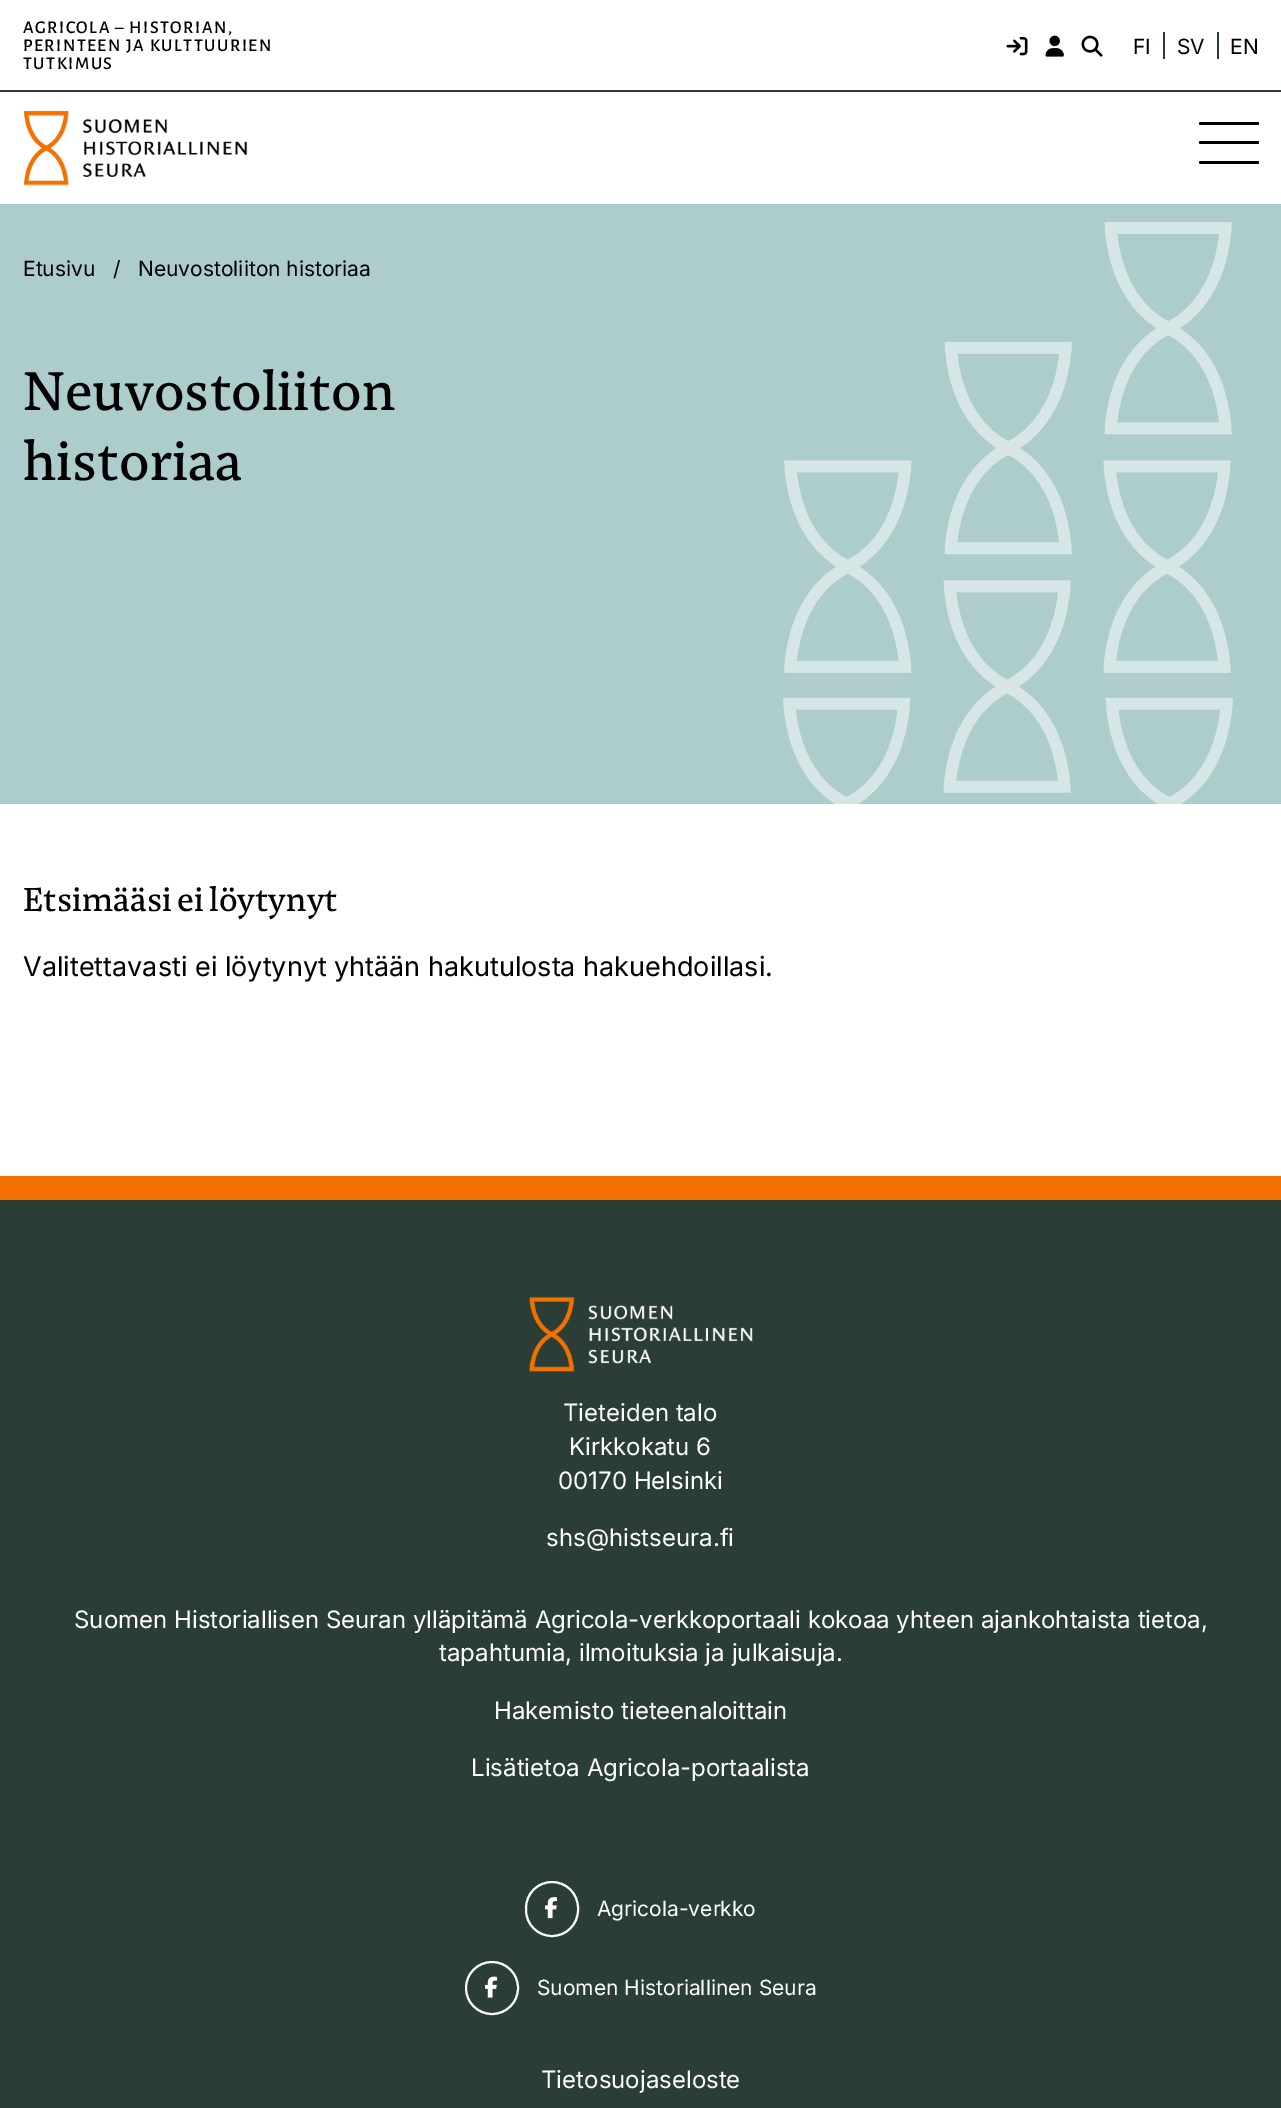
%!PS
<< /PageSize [1281 2108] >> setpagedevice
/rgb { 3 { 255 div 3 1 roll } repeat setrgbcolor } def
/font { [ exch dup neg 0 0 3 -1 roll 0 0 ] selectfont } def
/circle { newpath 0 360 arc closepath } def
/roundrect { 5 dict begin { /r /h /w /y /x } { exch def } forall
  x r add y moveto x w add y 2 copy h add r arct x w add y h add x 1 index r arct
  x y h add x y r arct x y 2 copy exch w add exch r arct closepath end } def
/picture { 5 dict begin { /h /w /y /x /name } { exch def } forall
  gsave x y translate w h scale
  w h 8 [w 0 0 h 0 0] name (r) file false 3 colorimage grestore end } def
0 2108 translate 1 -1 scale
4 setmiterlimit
255 255 255 rgb
0 0 1281 2108 rectfill
42 62 53 rgb
0 90 1281 2 rectfill
(img/1.rgb) 1006 36 22 20 picture
(img/2.rgb) 1045 35 19 22 picture
(img/3.rgb) 1081 35 22 22 picture
1163 32 2 27 rectfill
1217 32 2 27 rectfill
(img/4.rgb) 23 110 225 76 picture
0 0 0 rgb
1199 122 60 3 1.5 roundrect fill
1199 141 60 3 1.5 roundrect fill
1199 161 60 3 1.5 roundrect fill
173 204 204 rgb
0 204 1281 600 rectfill
(img/5.rgb) 783 222 450 582 picture
42 62 53 rgb
0 1200 1281 908 rectfill
242 113 0 rgb
0 1176 1281 24 rectfill
(img/6.rgb) 529 1296 224 76 picture
255 255 255 rgb
2 setlinewidth
526 1882 52 54 26 roundrect stroke
(img/7.rgb) 545 1897 13 22 picture
492 1988 26 circle stroke
(img/8.rgb) 485 1976 13 22 picture
/AlegreyaSans-Medium 18 font
0 0 0 rgb
23 33 moveto 1.5 0 (AGRICOLA – HISTORIAN,) ashow
23 51 moveto 1.5 0 (PERINTEEN JA KULTTUURIEN) ashow
23 69 moveto 1.5 0 (TUTKIMUS) ashow
/Inter-Regular 21 font
[
  [(FI) 1133 54]
  [(SV) 1177 54]
  [(EN) 1230 54]
  [(Etusivu) 23 276]
  [(/) 113 276]
  [(Neuvostoliiton historiaa) 138 276]
] { aload pop moveto show } forall
/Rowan-Medium 54 font
23 410 moveto (Neuvostoliiton) show
23 480 moveto (historiaa) show
/Rowan-Medium 33 font
23 911 moveto (Etsimääsi ei löytynyt) show
/Inter-Regular 27 font
23 976 moveto (Valitettavasti ei löytynyt yhtään hakutulosta hakuehdoillasi.) show
/Inter-Regular 24 font
255 255 255 rgb
[
  [(Tieteiden talo) 563 1421]
  [(Kirkkokatu 6) 569 1455]
  [(00170 Helsinki) 558 1489]
  [(shs@histseura.fi) 546 1546]
  [(Suomen Historiallisen Seuran ylläpitämä Agricola-verkkoportaali kokoaa yhteen ajankohtaista tietoa,) 74 1628]
  [(tapahtumia, ilmoituksia ja julkaisuja.) 439 1661]
  [(Hakemisto tieteenaloittain) 494 1719]
  [(Lisätietoa Agricola-portaalista) 471 1776]
] { aload pop moveto show } forall
/Inter-Regular 21 font
597 1916 moveto (Agricola-verkko) show
537 1995 moveto (Suomen Historiallinen Seura) show
/Inter-Regular 24 font
541 2088 moveto (Tietosuojaseloste) show
showpage
